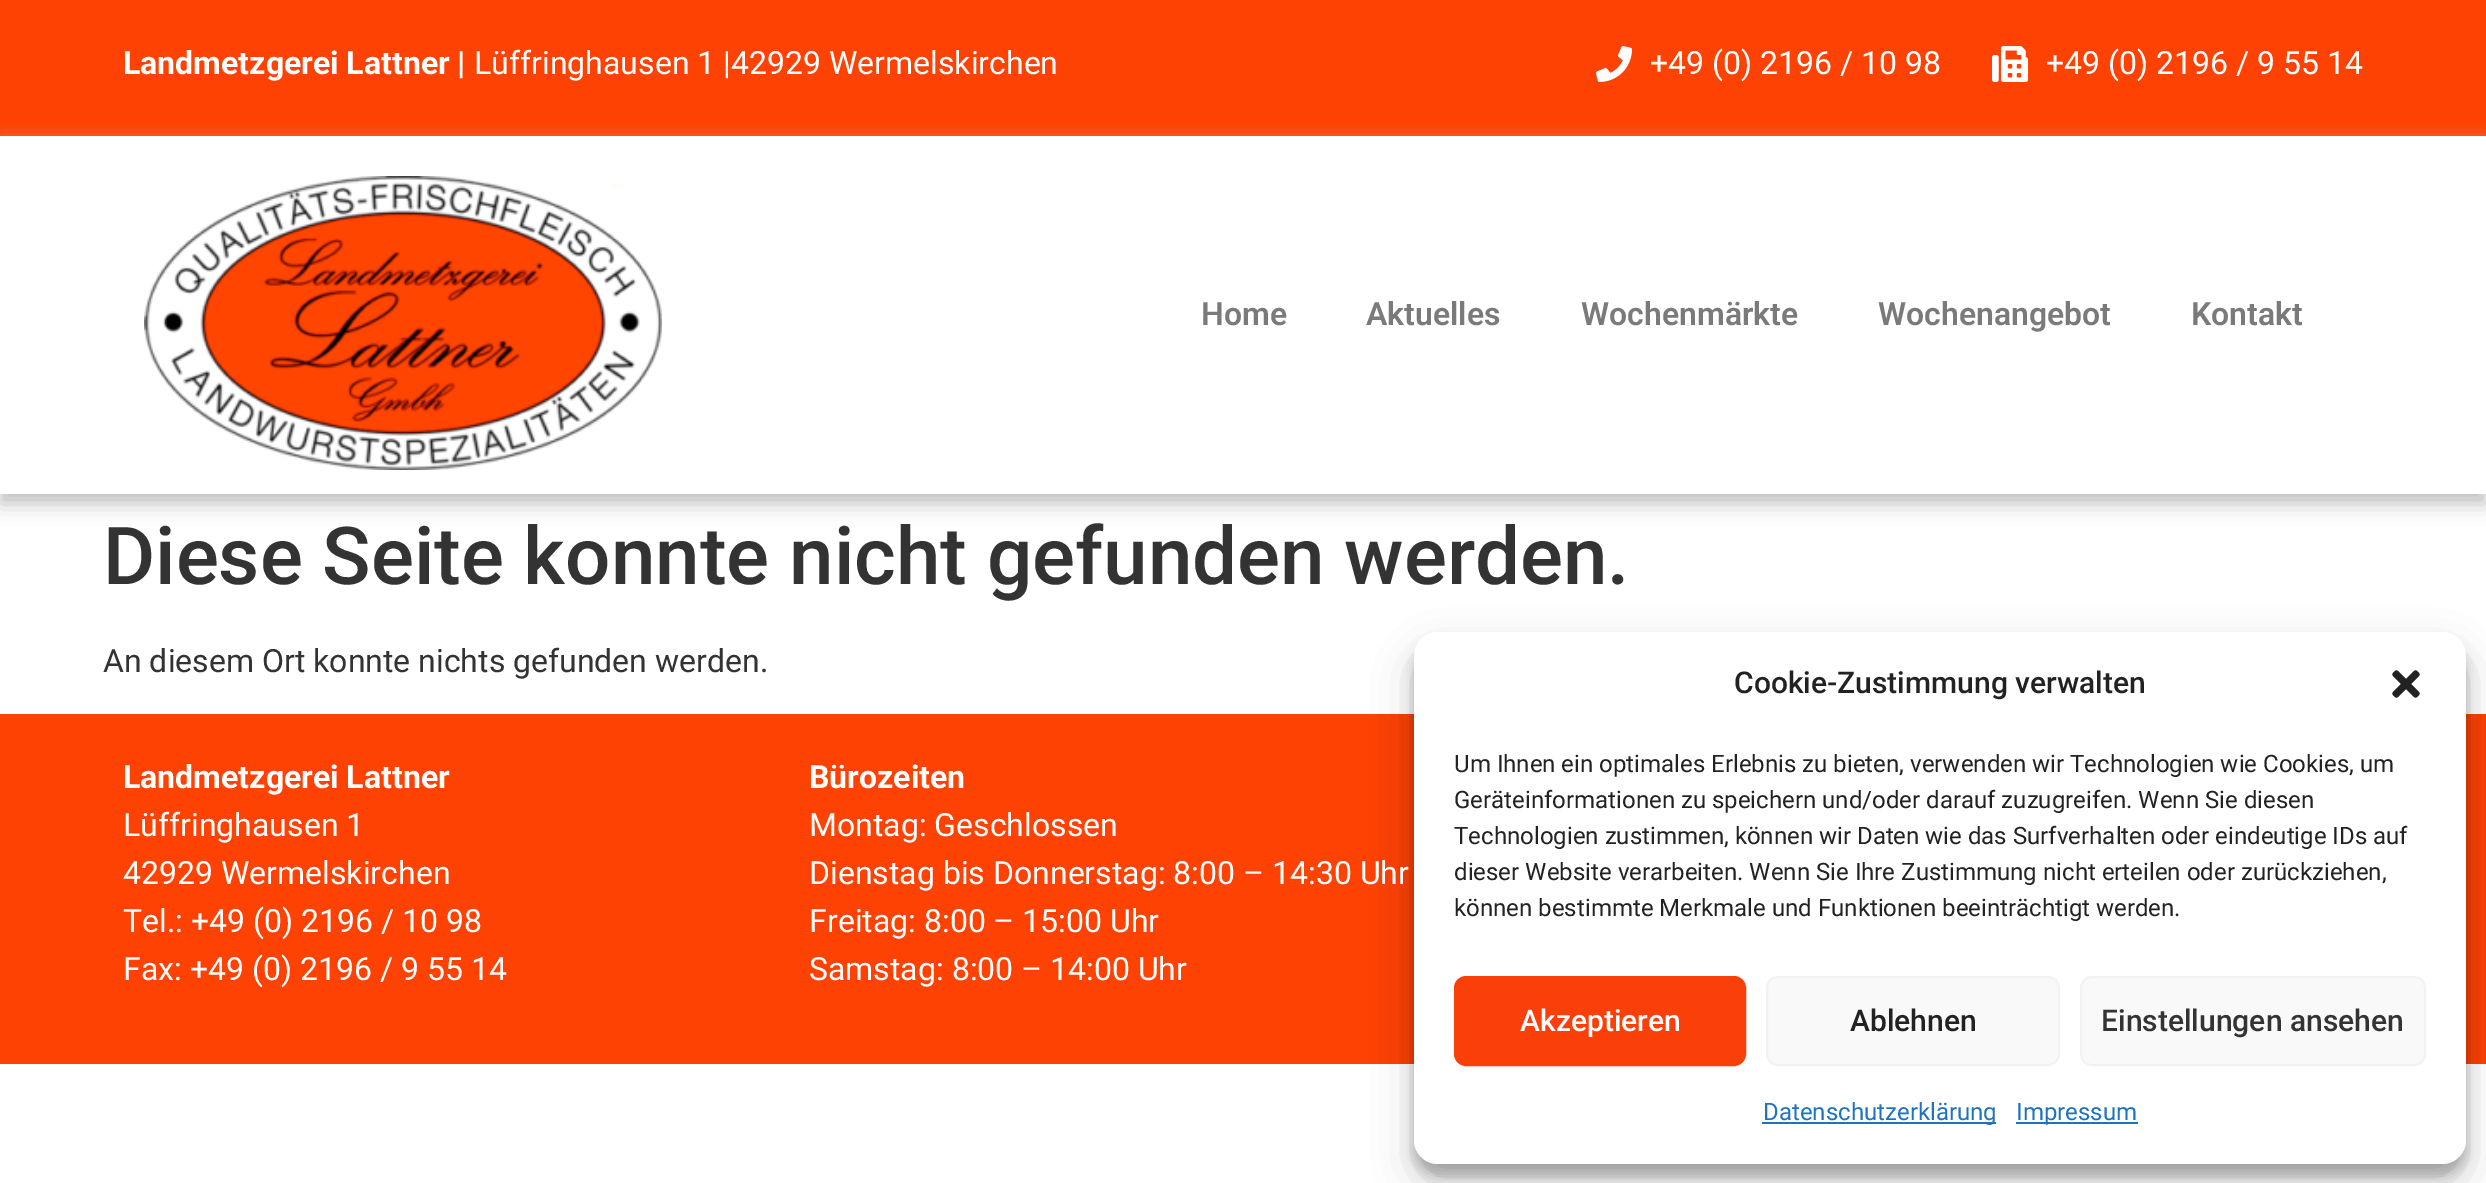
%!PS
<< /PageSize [2486 1183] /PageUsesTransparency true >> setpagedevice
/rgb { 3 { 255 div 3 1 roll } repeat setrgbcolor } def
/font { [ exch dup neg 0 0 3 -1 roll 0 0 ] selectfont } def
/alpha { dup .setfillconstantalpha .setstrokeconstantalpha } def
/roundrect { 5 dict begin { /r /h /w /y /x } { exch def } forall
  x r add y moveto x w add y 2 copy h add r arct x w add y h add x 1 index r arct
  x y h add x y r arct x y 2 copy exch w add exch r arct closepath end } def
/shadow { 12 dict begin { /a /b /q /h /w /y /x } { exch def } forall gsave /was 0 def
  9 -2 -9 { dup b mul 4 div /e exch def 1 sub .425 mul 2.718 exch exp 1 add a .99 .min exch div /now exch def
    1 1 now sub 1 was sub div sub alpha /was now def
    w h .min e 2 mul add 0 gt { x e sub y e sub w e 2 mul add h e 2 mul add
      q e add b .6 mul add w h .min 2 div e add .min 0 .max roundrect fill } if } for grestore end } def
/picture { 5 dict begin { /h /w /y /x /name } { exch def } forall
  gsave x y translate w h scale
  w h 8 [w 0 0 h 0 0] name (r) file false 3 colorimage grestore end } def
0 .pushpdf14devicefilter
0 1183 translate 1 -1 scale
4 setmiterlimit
255 255 255 rgb
0 0 2486 1183 rectfill
253 66 4 rgb
0 0 2486 136 rectfill
(img/1.rgb) 1596 46 36 36 picture
(img/2.rgb) 1992 46 36 36 picture
192 192 192 rgb
0 146 2486 358 0 10 1 shadow
255 255 255 rgb
0 136 2486 358 rectfill
(img/3.rgb) 144 176 518 294 picture
253 66 4 rgb
0 714 2486 350 rectfill
0 0 0 rgb
1414 644 1052 532 24 6 0.23 shadow
1414 652 1052 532 24 20 0.19 shadow
255 255 255 rgb
1414 632 1052 532 24 roundrect fill
(img/4.rgb) 2392 670 28 28 picture
251 63 8 rgb
1455 977 290 88 11 roundrect gsave fill grestore
2 setlinewidth
stroke
249 249 249 rgb
1767 977 292 88 11 roundrect gsave fill grestore
242 242 242 rgb
stroke
249 249 249 rgb
2081 977 344 88 11 roundrect gsave fill grestore
242 242 242 rgb
stroke
30 115 190 rgb
1762 1122 234 2 rectfill
2016 1122 122 2 rectfill
/Roboto-Bold 32 font
255 255 255 rgb
123 74 moveto (Landmetzgerei Lattner |) show
/Roboto-Regular 32 font
[
  [(Lüffringhausen 1 |42929 Wermelskirchen) 474 74]
  [(+49 \(0\) 2196 / 10 98) 1650 74]
  [(+49 \(0\) 2196 / 9 55 14) 2046 74]
] { aload pop moveto show } forall
/Roboto-SemiBold 32 font
122 122 122 rgb
[
  [(Home) 1201 325]
  [(Aktuelles) 1366 325]
  [(Wochenmärkte) 1581 325]
  [(Wochenangebot) 1878 325]
  [(Kontakt) 2191 325]
] { aload pop moveto show } forall
/Roboto-Medium 80 font
51 51 51 rgb
103 584 moveto (Diese Seite konnte nicht gefunden werden.) show
/Roboto-Regular 32 font
103 672 moveto (An diesem Ort konnte nichts gefunden werden.) show
/Roboto-Bold 32 font
255 255 255 rgb
123 788 moveto (Landmetzgerei Lattner) show
/Roboto-Regular 32 font
[
  [(Lüffringhausen 1) 123 836]
  [(42929 Wermelskirchen) 123 884]
  [(Tel.: +49 \(0\) 2196 / 10 98) 123 932]
  [(Fax: +49 \(0\) 2196 / 9 55 14) 123 980]
] { aload pop moveto show } forall
/Roboto-Bold 32 font
809 788 moveto (Bürozeiten) show
/Roboto-Regular 32 font
[
  [(Montag: Geschlossen) 809 836]
  [(Dienstag bis Donnerstag: 8:00 – 14:30 Uhr) 809 884]
  [(Freitag: 8:00 – 15:00 Uhr) 809 932]
  [(Samstag: 8:00 – 14:00 Uhr) 809 980]
] { aload pop moveto show } forall
/Roboto-Medium 30 font
34 34 34 rgb
1734 693 moveto (Cookie-Zustimmung verwalten) show
/Roboto-Regular 24 font
[
  [(Um Ihnen ein optimales Erlebnis zu bieten, verwenden wir Technologien wie Cookies, um) 1454 772]
  [(Geräteinformationen zu speichern und/oder darauf zuzugreifen. Wenn Sie diesen) 1454 808]
  [(Technologien zustimmen, können wir Daten wie das Surfverhalten oder eindeutige IDs auf) 1454 844]
  [(dieser Website verarbeiten. Wenn Sie Ihre Zustimmung nicht erteilen oder zurückziehen,) 1454 880]
  [(können bestimmte Merkmale und Funktionen beeinträchtigt werden.) 1454 916]
] { aload pop moveto show } forall
/Roboto-Medium 30 font
255 255 255 rgb
1520 1031 moveto (Akzeptieren) show
34 34 34 rgb
1850 1031 moveto (Ablehnen) show
51 51 51 rgb
2101 1031 moveto (Einstellungen ansehen) show
/Roboto-Regular 24 font
30 115 190 rgb
1763 1120 moveto (Datenschutzerklärung) show
2016 1120 moveto (Impressum) show
.poppdf14devicefilter showpage
